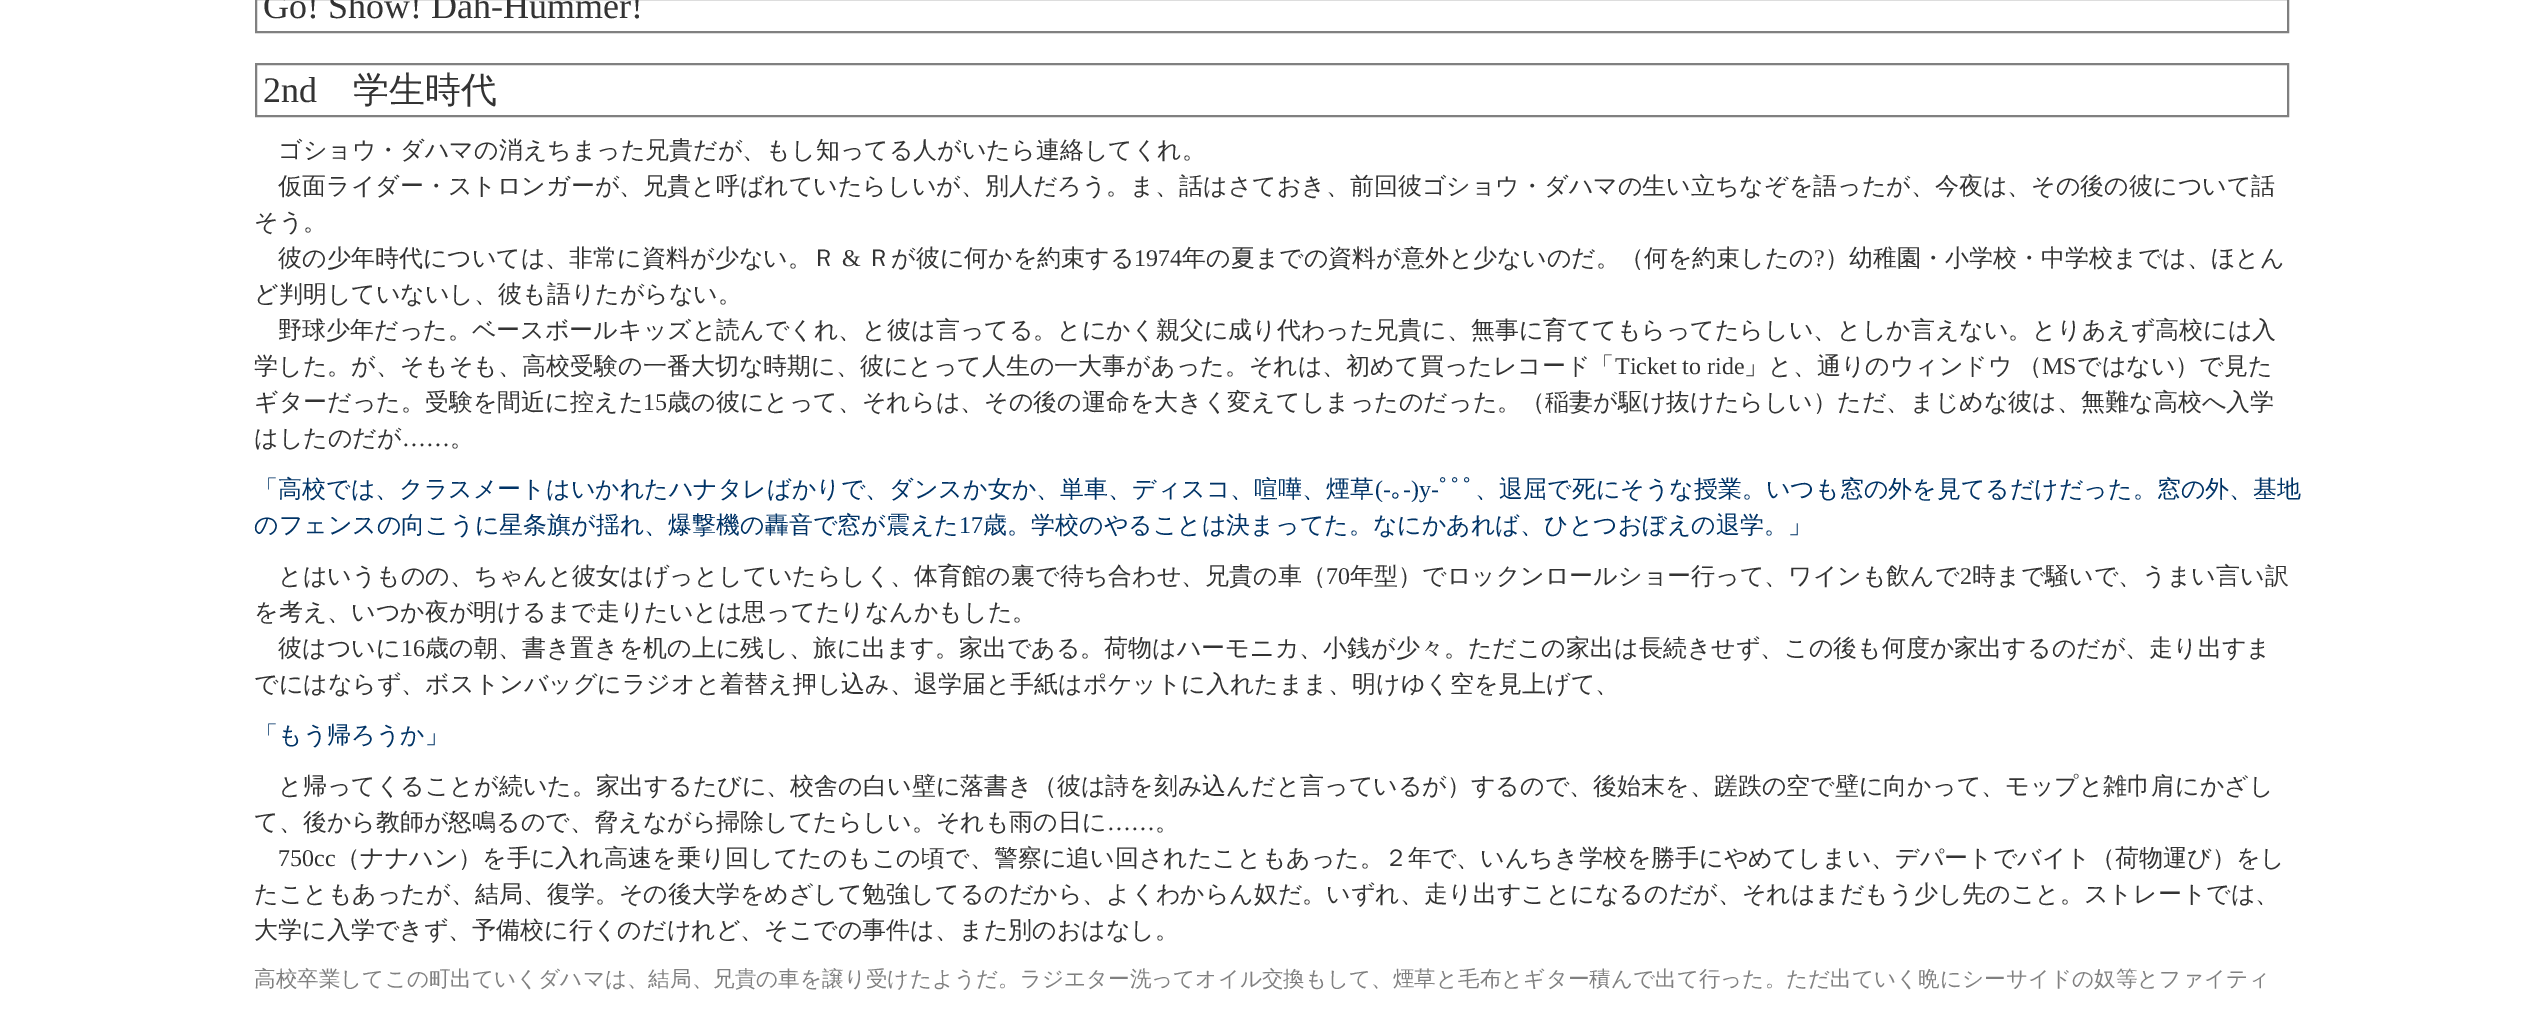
%!PS
<< /PageSize [2544 1009] >> setpagedevice
/rgb { 3 { 255 div 3 1 roll } repeat setrgbcolor } def
/font { [ exch dup neg 0 0 3 -1 roll 0 0 ] selectfont } def
0 1009 translate 1 -1 scale
4 setmiterlimit
255 255 255 rgb
0 0 2544 1009 rectfill
128 128 128 rgb
2 setlinewidth
256 -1 2032 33 rectstroke
256 64 2032 52 rectstroke
/LiberationSerif-Regular 36 font
51 51 51 rgb
263 18 moveto (Go! Show! Dah-Hummer!) show
263 102 moveto (2nd) show
/WenQuanYiZenHei-Medium 36 font
353 102 moveto (学生時代) show
/WenQuanYiZenHei-Medium 24 font
[
  [(ゴショウ・ダハマの消えちまった兄貴だが、もし知ってる人がいたら連絡してくれ。) 278 158]
  [(仮面ライダー・ストロンガーが、兄貴と呼ばれていたらしいが、別人だろう。ま、話はさておき、前回彼ゴショウ・ダハマの生い立ちなぞを語ったが、今夜は、その後の彼について話) 278 194]
  [(そう。) 254 230]
  [(彼の少年時代については、非常に資料が少ない。Ｒ) 278 266]
] { aload pop moveto show } forall
/LiberationSerif-Regular 24 font
842 266 moveto (&) show
/WenQuanYiZenHei-Medium 24 font
867 266 moveto (Ｒが彼に何かを約束する) show
/LiberationSerif-Regular 24 font
1134 266 moveto (1974) show
/WenQuanYiZenHei-Medium 24 font
1182 266 moveto (年の夏までの資料が意外と少ないのだ。（何を約束したの) show
/LiberationSerif-Regular 24 font
1814 266 moveto (?) show
/WenQuanYiZenHei-Medium 24 font
[
  [(）幼稚園・小学校・中学校までは、ほとん) 1825 266]
  [(ど判明していないし、彼も語りたがらない。) 254 302]
  [(野球少年だった。ベースボールキッズと読んでくれ、と彼は言ってる。とにかく親父に成り代わった兄貴に、無事に育ててもらってたらしい、としか言えない。とりあえず高校には入) 278 338]
  [(学した。が、そもそも、高校受験の一番大切な時期に、彼にとって人生の一大事があった。それは、初めて買ったレコード「) 254 374]
] { aload pop moveto show } forall
/LiberationSerif-Regular 24 font
1615 374 moveto (Ticket to ride) show
/WenQuanYiZenHei-Medium 24 font
1744 374 moveto (」と、通りのウィンドウ) show
2018 374 moveto (（) show
/LiberationSerif-Regular 24 font
2042 374 moveto (MS) show
/WenQuanYiZenHei-Medium 24 font
2077 374 moveto (ではない）で見た) show
254 410 moveto (ギターだった。受験を間近に控えた) show
/LiberationSerif-Regular 24 font
643 410 moveto (15) show
/WenQuanYiZenHei-Medium 24 font
667 410 moveto (歳の彼にとって、それらは、その後の運命を大きく変えてしまったのだった。（稲妻が駆け抜けたらしい）ただ、まじめな彼は、無難な高校へ入学) show
254 446 moveto (はしたのだが) show
/LiberationSerif-Regular 24 font
402 446 moveto (……) show
/WenQuanYiZenHei-Medium 24 font
450 446 moveto (。) show
0 51 102 rgb
254 497 moveto (「高校では、クラスメートはいかれたハナタレばかりで、ダンスか女か、単車、ディスコ、喧嘩、煙草) show
/LiberationSerif-Regular 24 font
1375 497 moveto (\(-) show
/IPAPGothic-Regular 24 font
1391 497 moveto (｡) show
/LiberationSerif-Regular 24 font
1403 497 moveto (-\)y-) show
/IPAPGothic-Regular 24 font
1439 497 moveto (ﾟﾟﾟ) show
/WenQuanYiZenHei-Medium 24 font
1475 497 moveto (、退屈で死にそうな授業。いつも窓の外を見てるだけだった。窓の外、基地) show
254 533 moveto (のフェンスの向こうに星条旗が揺れ、爆撃機の轟音で窓が震えた) show
/LiberationSerif-Regular 24 font
959 533 moveto (17) show
/WenQuanYiZenHei-Medium 24 font
983 533 moveto (歳。学校のやることは決まってた。なにかあれば、ひとつおぼえの退学。」) show
51 51 51 rgb
278 584 moveto (とはいうものの、ちゃんと彼女はげっとしていたらしく、体育館の裏で待ち合わせ、兄貴の車（) show
/LiberationSerif-Regular 24 font
1326 584 moveto (70) show
/WenQuanYiZenHei-Medium 24 font
1350 584 moveto (年型）でロックンロールショー行って、ワインも飲んで) show
/LiberationSerif-Regular 24 font
1960 584 moveto (2) show
/WenQuanYiZenHei-Medium 24 font
[
  [(時まで騒いで、うまい言い訳) 1972 584]
  [(を考え、いつか夜が明けるまで走りたいとは思ってたりなんかもした。) 254 620]
  [(彼はついに) 278 656]
] { aload pop moveto show } forall
/LiberationSerif-Regular 24 font
401 656 moveto (16) show
/WenQuanYiZenHei-Medium 24 font
425 656 moveto (歳の朝、書き置きを机の上に残し、旅に出ます。家出である。荷物はハーモニカ、小銭が少々。ただこの家出は長続きせず、この後も何度か家出するのだが、走り出すま) show
254 692 moveto (でにはならず、ボストンバッグにラジオと着替え押し込み、退学届と手紙はポケットに入れたまま、明けゆく空を見上げて、) show
0 51 102 rgb
254 743 moveto (「もう帰ろうか」) show
51 51 51 rgb
278 794 moveto (と帰ってくることが続いた。家出するたびに、校舎の白い壁に落書き（彼は詩を刻み込んだと言っているが）するので、後始末を、蹉跌の空で壁に向かって、モップと雑巾肩にかざし) show
254 830 moveto (て、後から教師が怒鳴るので、脅えながら掃除してたらしい。それも雨の日に) show
/LiberationSerif-Regular 24 font
1107 830 moveto (……) show
/WenQuanYiZenHei-Medium 24 font
1155 830 moveto (。) show
/LiberationSerif-Regular 24 font
278 866 moveto (750cc) show
/WenQuanYiZenHei-Medium 24 font
[
  [(（ナナハン）を手に入れ高速を乗り回してたのもこの頃で、警察に追い回されたこともあった。２年で、いんちき学校を勝手にやめてしまい、デパートでバイト（荷物運び）をし) 336 866]
  [(たこともあったが、結局、復学。その後大学をめざして勉強してるのだから、よくわからん奴だ。いずれ、走り出すことになるのだが、それはまだもう少し先のこと。ストレートでは、) 254 902]
  [(大学に入学できず、予備校に行くのだけれど、そこでの事件は、また別のおはなし。) 254 938]
] { aload pop moveto show } forall
/WenQuanYiZenHei-Medium 21.6 font
128 128 128 rgb
254 986 moveto (高校卒業してこの町出ていくダハマは、結局、兄貴の車を譲り受けたようだ。ラジエター洗ってオイル交換もして、煙草と毛布とギター積んで出て行った。ただ出ていく晩にシーサイドの奴等とファイティ) show
showpage
